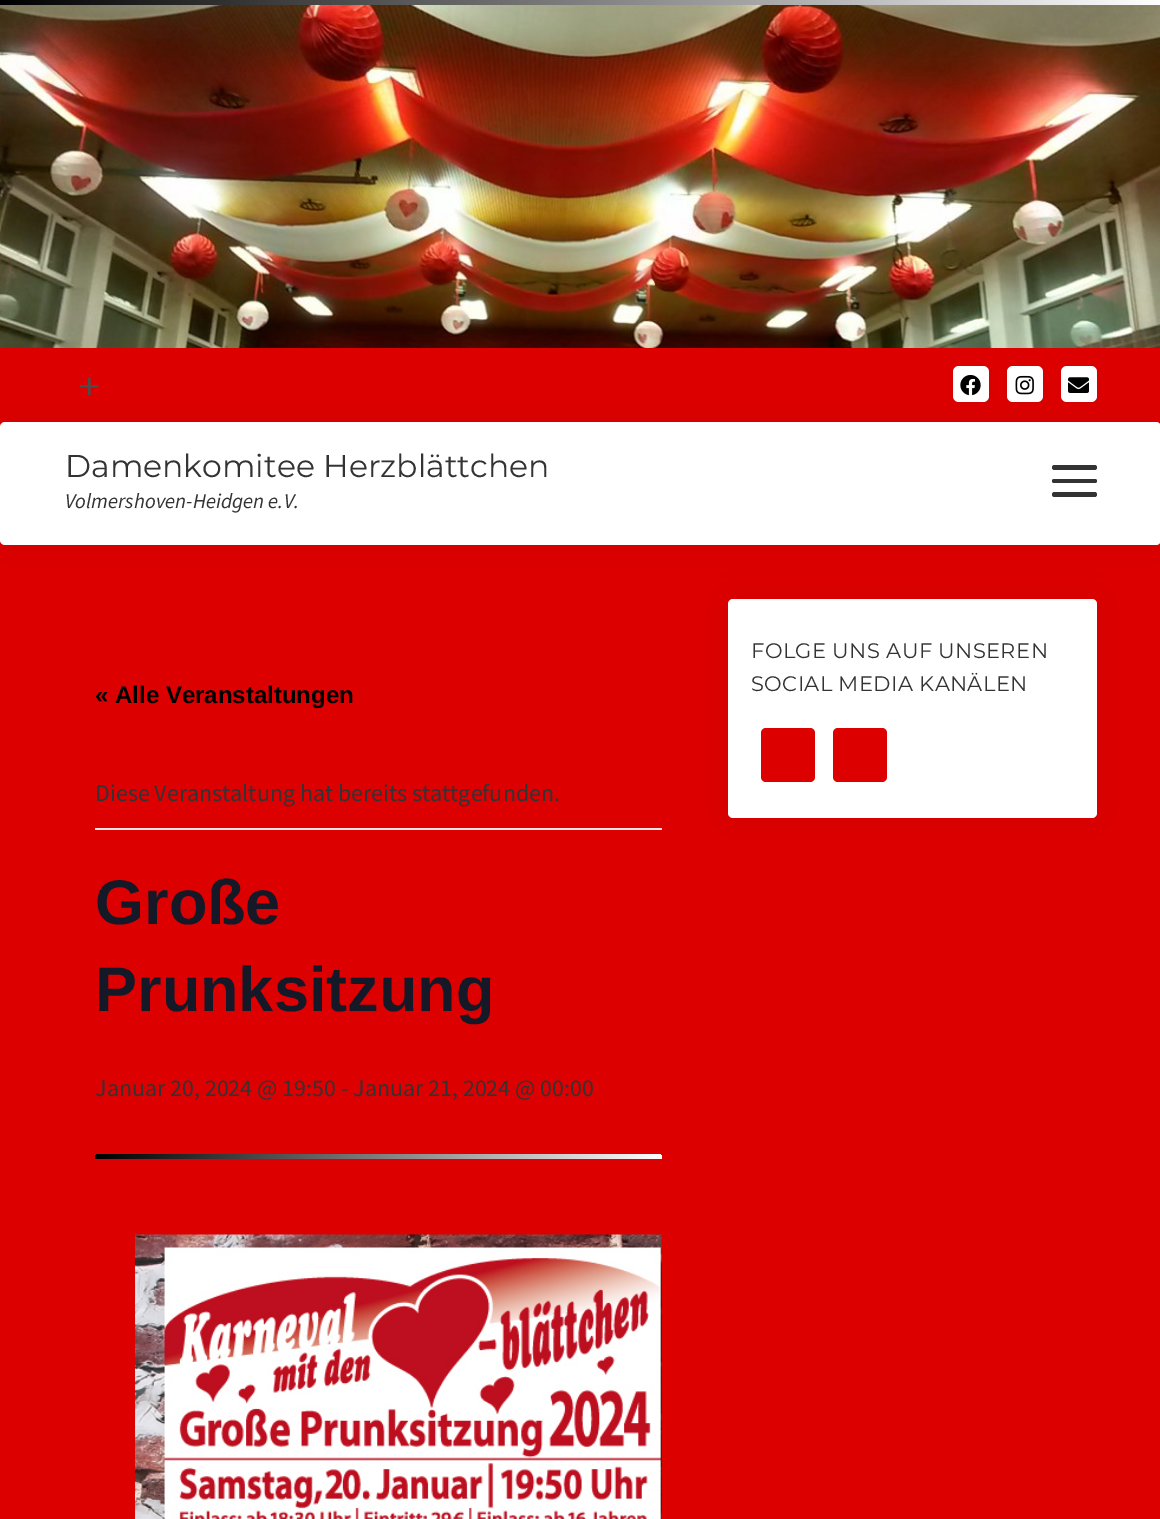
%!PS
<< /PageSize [1160 1519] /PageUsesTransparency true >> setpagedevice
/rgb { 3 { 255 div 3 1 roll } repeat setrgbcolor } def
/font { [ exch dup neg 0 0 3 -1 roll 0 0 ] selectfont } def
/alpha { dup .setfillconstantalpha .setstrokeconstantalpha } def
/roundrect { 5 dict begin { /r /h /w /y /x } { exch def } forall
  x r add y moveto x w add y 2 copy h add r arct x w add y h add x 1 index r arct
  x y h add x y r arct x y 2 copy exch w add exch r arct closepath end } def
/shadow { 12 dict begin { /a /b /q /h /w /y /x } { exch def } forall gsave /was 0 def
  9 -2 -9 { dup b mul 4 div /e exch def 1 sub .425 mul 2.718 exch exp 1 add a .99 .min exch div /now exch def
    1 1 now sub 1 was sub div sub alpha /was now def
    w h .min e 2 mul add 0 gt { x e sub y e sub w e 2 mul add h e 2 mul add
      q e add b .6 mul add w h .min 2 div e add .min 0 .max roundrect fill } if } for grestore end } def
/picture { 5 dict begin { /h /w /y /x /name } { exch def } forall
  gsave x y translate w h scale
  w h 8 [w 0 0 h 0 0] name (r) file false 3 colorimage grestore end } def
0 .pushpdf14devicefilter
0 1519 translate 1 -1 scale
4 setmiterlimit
221 0 0 rgb
0 0 1160 1519 rectfill
gsave 0 0 moveto 1160 0 lineto 1160 5 lineto 0 5 lineto closepath clip newpath
<< /ShadingType 2 /ColorSpace /DeviceRGB /Coords [0 2.3 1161 2.2] /Extend [true true] /Function << /FunctionType 2 /Domain [0 1] /C0 [0 0 0] /C1 [1 1 1] /N 1 >> >> shfill grestore
(img/1.rgb) 0 5 1160 343 picture
0 0 0 rgb
953 366 36 36 6 3 0.05 shadow
728 599 369 219 5 18 0.05 shadow
255 255 255 rgb
728 599 369 219 5 roundrect fill
0 0 0 rgb
0 422 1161 123 5 18 0.05 shadow
255 255 255 rgb
953 366 36 36 6 roundrect fill
(img/2.rgb) 960 375 21 21 picture
0 0 0 rgb
1007 366 36 36 6 3 0.05 shadow
255 255 255 rgb
1007 366 36 36 6 roundrect fill
(img/3.rgb) 1015 375 19 20 picture
0 0 0 rgb
1061 366 36 36 6 3 0.05 shadow
255 255 255 rgb
1061 366 36 36 6 roundrect fill
(img/4.rgb) 1068 377 21 16 picture
0 422 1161 123 5 roundrect fill
51 51 51 rgb
1052 465 45 5 2.5 roundrect fill
1052 479 45 4 2 roundrect fill
1052 492 45 5 2.5 roundrect fill
221 0 0 rgb
761 728 54 54 5 roundrect fill
833 728 54 54 5 roundrect fill
228 228 228 rgb
95 828 567 2 rectfill
gsave 100 1154 moveto 657 1154 lineto 660 1154 662 1156 662 1159 curveto 95 1159 lineto 95 1156 97 1154 100 1154 curveto closepath clip newpath
<< /ShadingType 2 /ColorSpace /DeviceRGB /Coords [95 1156 662 1156] /Extend [true true] /Function << /FunctionType 2 /Domain [0 1] /C0 [0 0 0] /C1 [1 1 1] /N 1 >> >> shfill grestore
(img/5.rgb) 135 1234 527 285 picture
/Montserrat-Thin 42 font
76 76 76 rgb
77 401 moveto (+) show
/Montserrat-Thin 31.5 font
51 51 51 rgb
65 477 moveto (Damenkomitee Herzblättchen) show
/SourceSansPro-Italic 21 font
65 508 moveto (Volmershoven-Heidgen e.V.) show
/Montserrat-Thin 21 font
751 658 moveto 0.4 0 (FOLGE UNS AUF UNSEREN) ashow
751 691 moveto 0.4 0 (SOCIAL MEDIA KANÄLEN) ashow
/LiberationSans-Bold 24 font
0 0 0 rgb
95 703 moveto (« Alle Veranstaltungen) show
/SourceSansPro-Regular 24 font
51 51 51 rgb
95 801 moveto (Diese Veranstaltung hat bereits stattgefunden.) show
/LiberationSans-Bold 63 font
20 24 39 rgb
95 924 moveto (Große) show
95 1011 moveto (Prunksitzung) show
/SourceSansPro-Regular 24 font
51 51 51 rgb
95 1096 moveto (Januar 20, 2024 @ 19:50 - Januar 21, 2024 @ 00:00) show
.poppdf14devicefilter showpage
